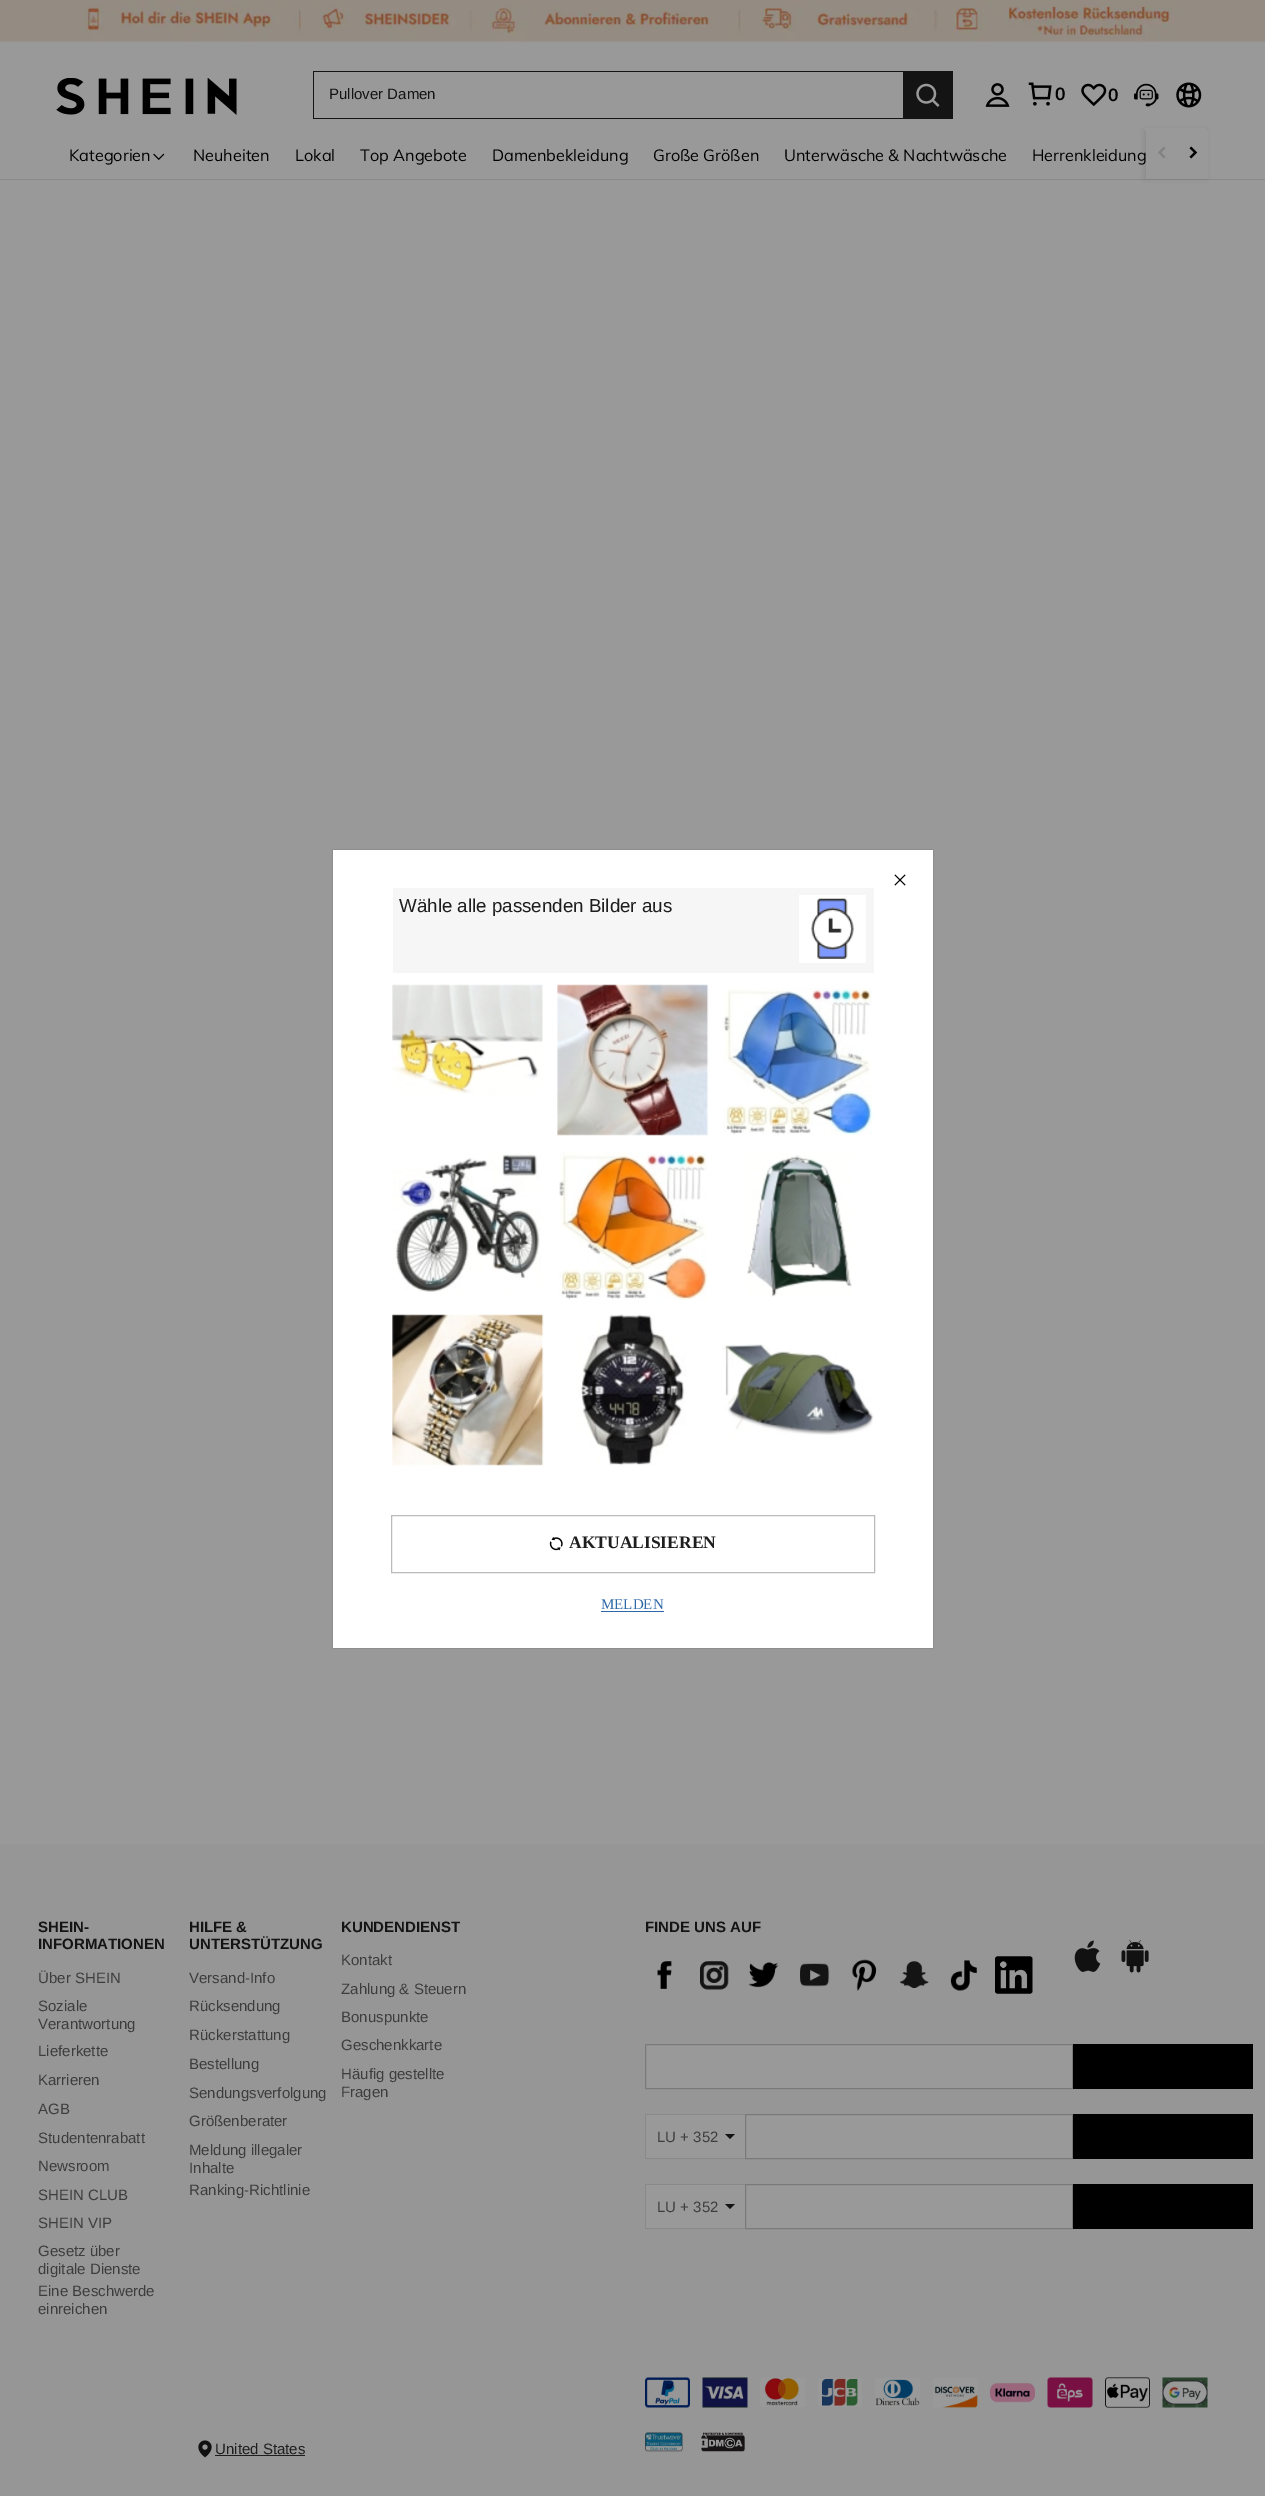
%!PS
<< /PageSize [1265 2496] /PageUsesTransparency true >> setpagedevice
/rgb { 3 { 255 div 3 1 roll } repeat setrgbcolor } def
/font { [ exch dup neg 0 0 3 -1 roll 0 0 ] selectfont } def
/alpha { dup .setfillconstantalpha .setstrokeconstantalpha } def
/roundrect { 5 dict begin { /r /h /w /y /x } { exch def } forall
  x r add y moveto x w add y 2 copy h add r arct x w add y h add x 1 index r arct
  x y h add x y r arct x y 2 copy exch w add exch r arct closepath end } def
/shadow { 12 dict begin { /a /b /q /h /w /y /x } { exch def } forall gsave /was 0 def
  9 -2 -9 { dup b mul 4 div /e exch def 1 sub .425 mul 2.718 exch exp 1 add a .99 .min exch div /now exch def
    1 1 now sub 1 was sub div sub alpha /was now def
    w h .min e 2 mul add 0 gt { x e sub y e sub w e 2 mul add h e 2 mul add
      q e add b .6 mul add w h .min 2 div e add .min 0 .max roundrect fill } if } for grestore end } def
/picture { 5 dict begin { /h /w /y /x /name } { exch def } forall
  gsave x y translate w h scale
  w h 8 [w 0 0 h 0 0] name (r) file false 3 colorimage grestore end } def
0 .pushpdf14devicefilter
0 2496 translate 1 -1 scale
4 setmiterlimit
153 153 153 rgb
0 0 1265 2496 rectfill
(img/1.rgb) 0 0 1265 42 picture
137 137 137 rgb
0 179 1265 1 rectfill
0 0 0 rgb
1144 130 62 49 0 2 0.08 shadow
153 153 153 rgb
1144 128 62 2 rectfill
(img/2.rgb) 56 78 181 37 picture
[
  [313 71 590 1 20 20 20]
  [313 118 590 1 20 20 20]
  [313 71 1 48 20 20 20]
  [903 71 50 48 20 20 20]
] { aload pop rgb rectfill } forall
(img/3.rgb) 916 83 24 24 picture
(img/4.rgb) 985 83 25 24 picture
(img/5.rgb) 1028 82 24 24 picture
(img/6.rgb) 1081 83 26 24 picture
(img/7.rgb) 1134 83 25 24 picture
(img/8.rgb) 1176 82 26 26 picture
(img/9.rgb) 153 153 12 7 picture
153 153 153 rgb
1146 130 62 49 rectfill
(img/10.rgb) 1158 146 8 13 picture
(img/11.rgb) 1189 146 9 13 picture
150 150 150 rgb
0 1844 1265 652 rectfill
(img/12.rgb) 657 1961 15 28 picture
(img/13.rgb) 700 1961 29 29 picture
(img/14.rgb) 748 1962 31 26 picture
(img/15.rgb) 800 1963 30 24 picture
(img/16.rgb) 852 1959 25 32 picture
(img/17.rgb) 900 1961 29 27 picture
(img/18.rgb) 950 1960 27 31 picture
(img/19.rgb) 995 1956 38 38 picture
(img/20.rgb) 1074 1940 27 32 picture
(img/21.rgb) 1121 1940 28 33 picture
153 153 153 rgb
645.5 2044.5 moveto 1072.5 2044.5 lineto 1072.5 2088.5 lineto 645.5 2088.5 lineto closepath gsave fill grestore
122 122 122 rgb
stroke
[
  [1073 2044 180 45 0 0 0]
  [646 2115 99 43 153 153 153]
  [645 2114 100 1 137 137 137]
  [645 2158 100 1 137 137 137]
  [645 2114 1 45 137 137 137]
] { aload pop rgb rectfill } forall
20 20 20 rgb
725 2134 moveto 735 2134 lineto 730 2139 lineto closepath fill
153 153 153 rgb
745.5 2114.5 moveto 1072.5 2114.5 lineto 1072.5 2158.5 lineto 745.5 2158.5 lineto closepath gsave fill grestore
122 122 122 rgb
stroke
[
  [1073 2114 180 45 0 0 0]
  [646 2185 99 43 153 153 153]
  [645 2184 100 1 137 137 137]
  [645 2228 100 1 137 137 137]
  [645 2184 1 45 137 137 137]
] { aload pop rgb rectfill } forall
20 20 20 rgb
725 2204 moveto 735 2204 lineto 730 2209 lineto closepath fill
153 153 153 rgb
745.5 2184.5 moveto 1072.5 2184.5 lineto 1072.5 2228.5 lineto 745.5 2228.5 lineto closepath gsave fill grestore
122 122 122 rgb
stroke
0 0 0 rgb
1073 2184 180 45 rectfill
(img/22.rgb) 645 2377 45 31 picture
(img/23.rgb) 702 2377 46 31 picture
(img/24.rgb) 760 2377 45 30 picture
(img/25.rgb) 818 2378 44 29 picture
(img/26.rgb) 875 2378 45 29 picture
(img/27.rgb) 933 2378 45 30 picture
(img/28.rgb) 990 2382 45 21 picture
(img/29.rgb) 1047 2377 46 31 picture
(img/30.rgb) 1105 2377 45 31 picture
(img/31.rgb) 1162 2377 46 31 picture
(img/32.rgb) 198 2440 14 18 picture
30 30 30 rgb
215 2455 90 1 rectfill
(img/33.rgb) 645 2432 38 20 picture
(img/34.rgb) 701 2432 44 20 picture
0 0 0 rgb
333 850 600 798 0 0.5 0.3 shadow
255 255 255 rgb
333 850 600 798 rectfill
(img/35.rgb) 894 874 12 12 picture
246 246 246 rgb
393 888 481 85 rectfill
255 255 255 rgb
799 895 67 68 rectfill
(img/36.rgb) 811 898 43 61 picture
(img/37.rgb) 392 984 151 110 picture
(img/38.rgb) 557 984 152 152 picture
(img/39.rgb) 723 988 150 147 picture
(img/40.rgb) 393 1154 148 138 picture
(img/41.rgb) 559 1152 149 148 picture
(img/42.rgb) 747 1154 105 143 picture
(img/43.rgb) 392 1314 152 152 picture
(img/44.rgb) 578 1314 108 152 picture
(img/45.rgb) 722 1344 152 91 picture
187 187 187 rgb
391.5 1515.5 483 57 rectstroke
(img/46.rgb) 549 1536 14 15 picture
45 104 168 rgb
601 1611 63 1 rectfill
/LiberationSans-Regular 15 font
20 20 20 rgb
329 99 moveto (Pullover Damen) show
/Muli-Bold 17.5 font
0 0 0 rgb
1055 100 moveto (0) show
1108 101 moveto (0) show
/Muli-Regular 16.25 font
[
  [(Kategorien) 69 161]
  [(Neuheiten) 193 161]
  [(Lokal) 295 161]
  [(Top Angebote) 360 161]
  [(Damenbekleidung) 492 161]
  [(Große Größen) 653 161]
  [(Unterwäsche & Nachtwäsche) 784 161]
  [(Herrenkleidung) 1032 161]
] { aload pop moveto show } forall
/LiberationSans-Bold 15 font
20 20 20 rgb
38 1932 moveto (SHEIN-) show
38 1949 moveto (INFORMATIONEN) show
/LiberationSans-Regular 15 font
61 61 61 rgb
[
  [(Über SHEIN) 38 1983]
  [(Soziale) 38 2011]
  [(Verantwortung) 38 2029]
  [(Lieferkette) 38 2056]
  [(Karrieren) 38 2085]
  [(AGB) 38 2114]
  [(Studentenrabatt) 38 2143]
  [(Newsroom) 38 2171]
  [(SHEIN CLUB) 38 2200]
  [(SHEIN VIP) 38 2228]
  [(Gesetz über) 38 2256]
  [(digitale Dienste) 38 2274]
  [(Eine Beschwerde) 38 2296]
  [(einreichen) 38 2314]
] { aload pop moveto show } forall
/LiberationSans-Bold 15 font
20 20 20 rgb
189 1932 moveto (HILFE &) show
189 1949 moveto (UNTERSTÜTZUNG) show
/LiberationSans-Regular 15 font
61 61 61 rgb
[
  [(Versand-Info) 189 1983]
  [(Rücksendung) 189 2011]
  [(Rückerstattung) 189 2040]
  [(Bestellung) 189 2069]
  [(Sendungsverfolgung) 189 2098]
  [(Größenberater) 189 2126]
  [(Meldung illegaler) 189 2155]
  [(Inhalte) 189 2173]
  [(Ranking-Richtlinie) 189 2195]
] { aload pop moveto show } forall
/LiberationSans-Bold 15 font
20 20 20 rgb
341 1932 moveto (KUNDENDIENST) show
/LiberationSans-Regular 15 font
61 61 61 rgb
[
  [(Kontakt) 341 1965]
  [(Zahlung & Steuern) 341 1994]
  [(Bonuspunkte) 341 2022]
  [(Geschenkkarte) 341 2050]
  [(Häufig gestellte) 341 2079]
  [(Fragen) 341 2097]
] { aload pop moveto show } forall
/LiberationSans-Bold 15 font
20 20 20 rgb
645 1932 moveto (FINDE UNS AUF) show
/LiberationSans-Regular 15 font
61 61 61 rgb
657 2142 moveto (LU + 352) show
657 2212 moveto (LU + 352) show
30 30 30 rgb
215 2454 moveto (United States) show
/LiberationSans-Regular 18.75 font
399 912 moveto (Wähle alle passenden Bilder aus) show
/LiberationSerif-Bold 17.5 font
569 1548 moveto (AKTUALISIEREN) show
/LiberationSerif-Regular 15 font
45 104 168 rgb
601 1609 moveto (MELDEN) show
.poppdf14devicefilter showpage
